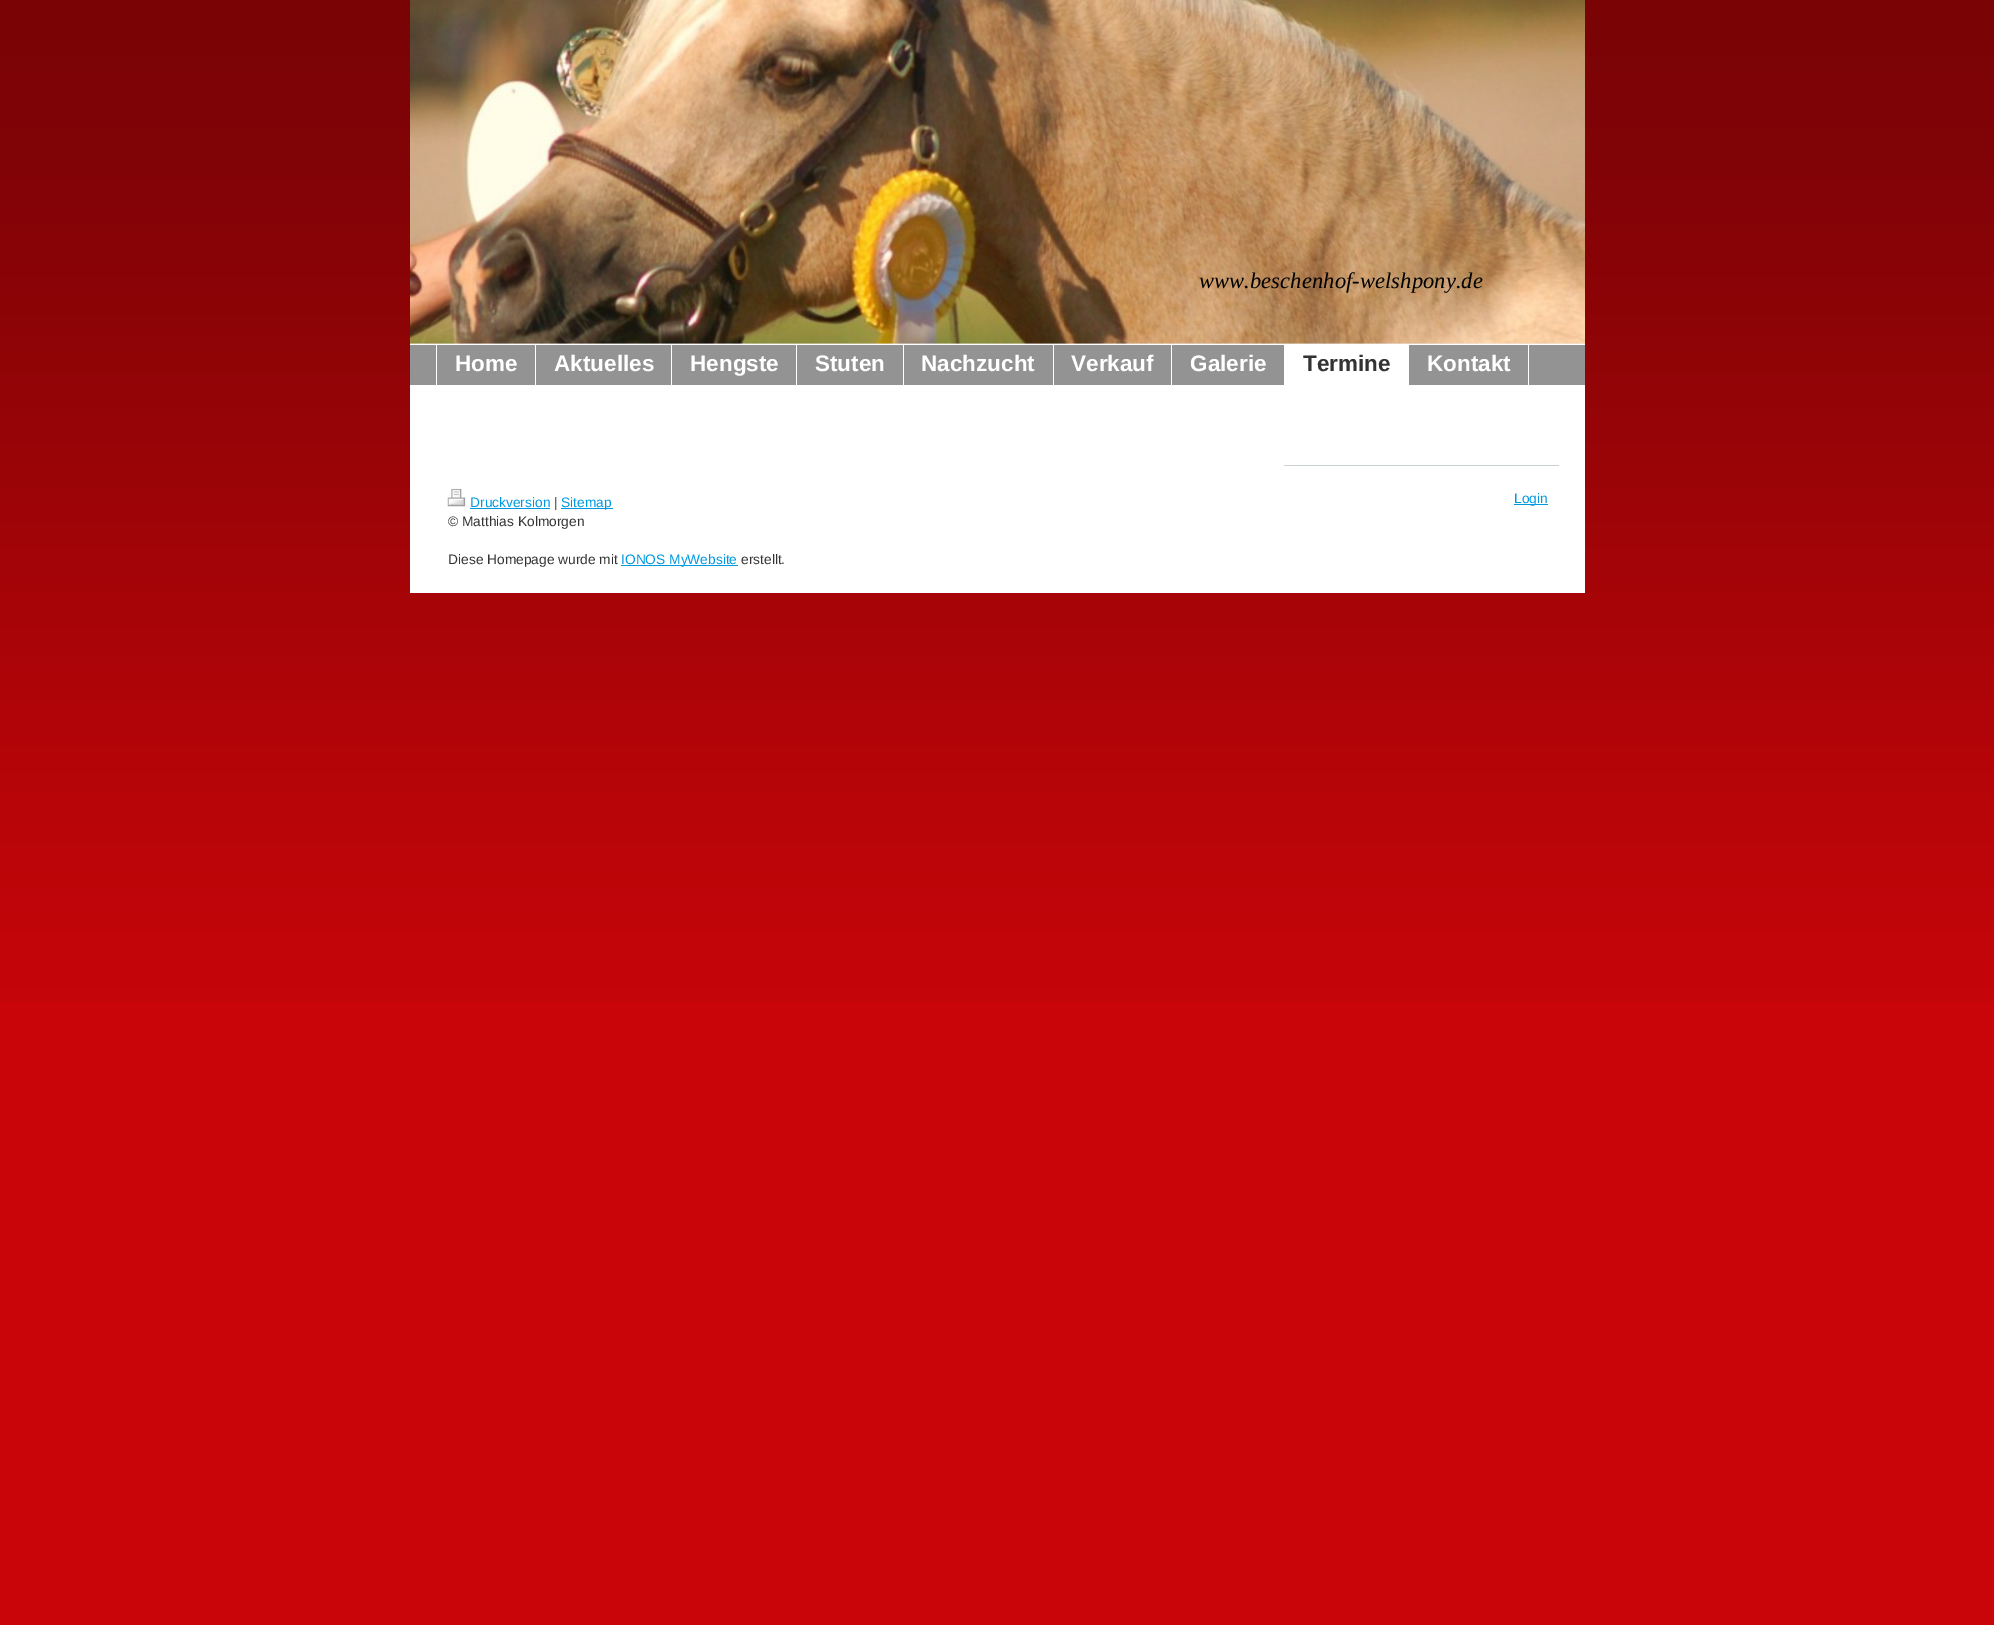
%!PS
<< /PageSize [1994 1625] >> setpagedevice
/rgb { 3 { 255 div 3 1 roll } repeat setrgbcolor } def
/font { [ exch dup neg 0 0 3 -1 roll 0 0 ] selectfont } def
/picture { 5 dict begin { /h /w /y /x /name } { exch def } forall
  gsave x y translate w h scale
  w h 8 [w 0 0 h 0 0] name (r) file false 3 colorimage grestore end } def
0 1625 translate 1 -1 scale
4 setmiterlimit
201 5 9 rgb
0 0 1994 1625 rectfill
(img/1.rgb) 0 0 1994 1002 picture
255 255 255 rgb
410 344 1175 249 rectfill
238 238 238 rgb
410 343 1175 1 rectfill
(img/2.rgb) 410 0 1175 344 picture
[
  [410 345 1175 40 147 147 147]
  [436 344 1 41 255 255 255]
  [535 344 1 42 255 255 255]
  [671 344 1 42 255 255 255]
  [796 344 1 42 255 255 255]
  [903 344 1 42 255 255 255]
  [1053 344 1 42 255 255 255]
  [1171 344 1 42 255 255 255]
  [1284 344 1 42 255 255 255]
  [1285 345 124 40 255 255 255]
  [1528 344 1 42 255 255 255]
  [1284 465 275 1 202 209 213]
] { aload pop rgb rectfill } forall
(img/3.rgb) 447 488 19 19 picture
[
  [470 508 80 1 0 153 225]
  [561 508 52 1 0 153 225]
  [621 565 117 1 0 153 225]
  [1514 504 34 1 0 153 225]
] { aload pop rgb rectfill } forall
/LiberationSerif-Italic 22.5 font
0 0 0 rgb
1199 288 moveto 0.1 0 (www.beschenhof-welshpony.de) ashow
/LiberationSans-Bold 22.5 font
255 255 255 rgb
[
  [(Home) 455 371]
  [(Aktuelles) 554 371]
  [(Hengste) 690 371]
  [(Stuten) 815 371]
  [(Nachzucht) 921 371]
  [(Verkauf) 1071 371]
  [(Galerie) 1190 371]
] { aload pop moveto show } forall
51 51 51 rgb
1303 371 moveto (Termine) show
255 255 255 rgb
1427 371 moveto (Kontakt) show
/LiberationSans-Regular 13.75 font
0 153 225 rgb
470 507 moveto (Druckversion) show
51 51 51 rgb
554 507 moveto (|) show
0 153 225 rgb
561 507 moveto (Sitemap) show
gsave
448 489 1100 81 rectclip
51 51 51 rgb
448 526 moveto (© Matthias Kolmorgen) show
grestore
51 51 51 rgb
448 564 moveto (Diese Homepage wurde mit) show
0 153 225 rgb
621 564 moveto (IONOS MyWebsite) show
51 51 51 rgb
741 564 moveto (erstellt.) show
0 153 225 rgb
1514 503 moveto (Login) show
showpage
